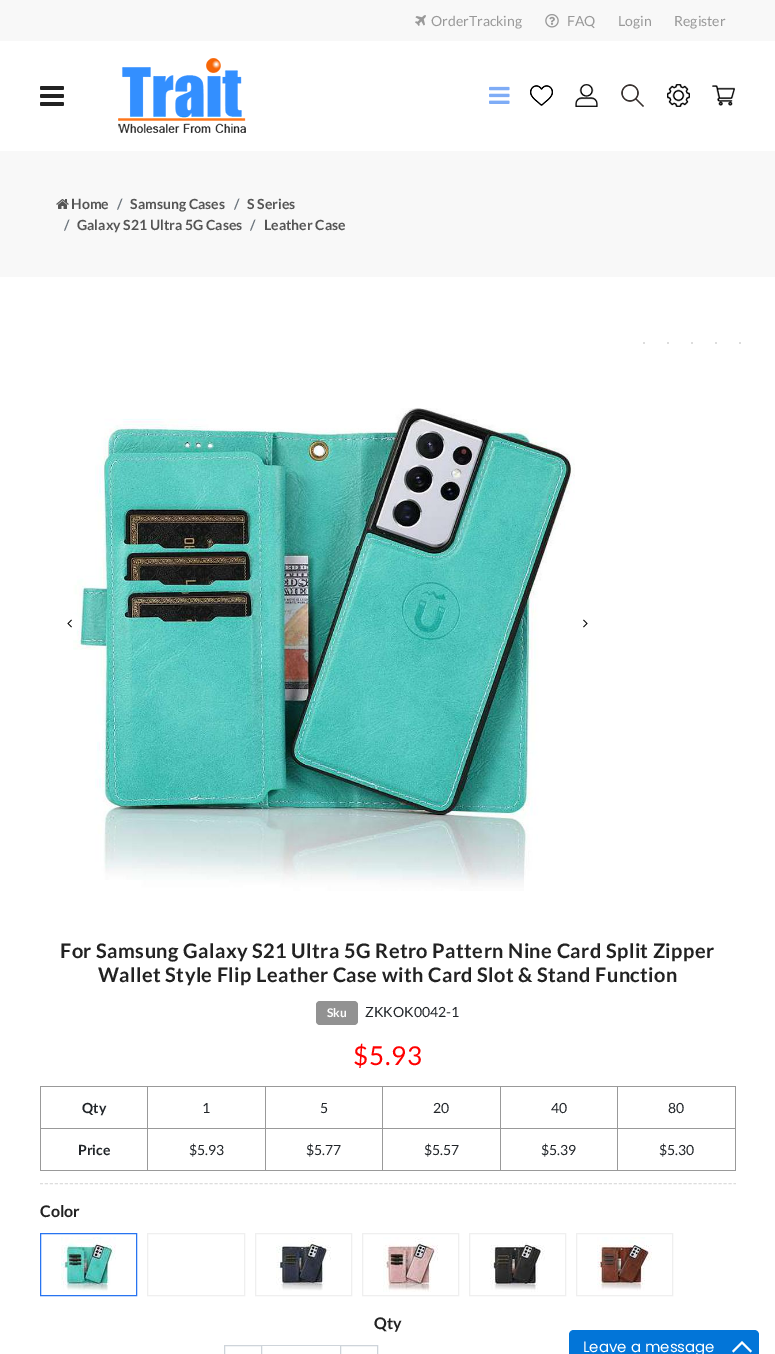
%!PS
<< /PageSize [775 1354] >> setpagedevice
/rgb { 3 { 255 div 3 1 roll } repeat setrgbcolor } def
/font { [ exch dup neg 0 0 3 -1 roll 0 0 ] selectfont } def
/circle { newpath 0 360 arc closepath } def
/roundrect { 5 dict begin { /r /h /w /y /x } { exch def } forall
  x r add y moveto x w add y 2 copy h add r arct x w add y h add x 1 index r arct
  x y h add x y r arct x y 2 copy exch w add exch r arct closepath end } def
/picture { 5 dict begin { /h /w /y /x /name } { exch def } forall
  gsave x y translate w h scale
  w h 8 [w 0 0 h 0 0] name (r) file false 3 colorimage grestore end } def
0 1354 translate 1 -1 scale
4 setmiterlimit
255 255 255 rgb
0 0 775 1354 rectfill
248 248 248 rgb
0 0 775 41 rectfill
(img/1.rgb) 415 15 11 11 picture
(img/2.rgb) 545 14 14 14 picture
(img/3.rgb) 40 86 24 20 picture
(img/4.rgb) 118 58 128 75 picture
(img/5.rgb) 489 86 21 18 picture
(img/6.rgb) 530 85 23 21 picture
(img/7.rgb) 575 84 23 23 picture
(img/8.rgb) 621 84 23 23 picture
(img/9.rgb) 667 84 23 23 picture
(img/10.rgb) 712 85 23 21 picture
0 151 775 126 rectfill
(img/11.rgb) 56 199 13 10 picture
[
  [643 342 2 2 221 221 221]
  [667 342 2 2 221 221 221]
  [691 342 2 2 221 221 221]
  [715 342 2 2 221 221 221]
  [739 342 2 2 221 221 221]
] { aload pop rgb rectfill } forall
(img/13.rgb) 73 408 502 483 picture
255 255 255 rgb
70 623 10 circle fill
(img/12.rgb) 67 619 5 9 picture
(img/14.rgb) 583 619 5 9 picture
146 146 146 rgb
316 1001 42 24 4 roundrect fill
[
  [617 1086 119 1 153 153 153]
  [617 1128 119 1 153 153 153]
  [735 1128 1 43 153 153 153]
  [617 1170 119 1 153 153 153]
  [617 1128 1 43 153 153 153]
  [500 1128 118 1 153 153 153]
  [617 1086 1 43 153 153 153]
  [500 1086 118 1 153 153 153]
  [500 1170 118 1 153 153 153]
  [500 1128 1 43 153 153 153]
  [382 1128 119 1 153 153 153]
  [500 1086 1 43 153 153 153]
  [382 1086 119 1 153 153 153]
  [382 1170 119 1 153 153 153]
  [382 1128 1 43 153 153 153]
  [265 1128 118 1 153 153 153]
  [382 1086 1 43 153 153 153]
  [265 1086 118 1 153 153 153]
  [265 1170 118 1 153 153 153]
  [265 1128 1 43 153 153 153]
  [147 1128 119 1 153 153 153]
  [265 1086 1 43 153 153 153]
  [147 1086 119 1 153 153 153]
  [147 1170 119 1 153 153 153]
  [147 1128 1 43 153 153 153]
  [40 1128 108 1 153 153 153]
  [147 1086 1 43 153 153 153]
  [40 1086 108 1 153 153 153]
  [40 1170 108 1 153 153 153]
  [40 1128 1 43 153 153 153]
  [40 1086 1 43 153 153 153]
  [735 1086 1 43 153 153 153]
] { aload pop rgb rectfill } forall
221 221 221 rgb
[3 1.99] 0 setdash
40 1183.5 moveto 736 1183.5 lineto stroke
40 116 240 rgb
[] 0 setdash
40.5 1233.5 96 62 rectstroke
(img/15.rgb) 61 1237 55 55 picture
239 239 239 rgb
147.5 1233.5 97 62 rectstroke
255.5 1233.5 96 62 rectstroke
(img/16.rgb) 276 1237 55 54 picture
362.5 1233.5 96 62 rectstroke
(img/17.rgb) 383 1237 55 55 picture
469.5 1233.5 96 62 rectstroke
(img/18.rgb) 490 1241 55 51 picture
576.5 1233.5 96 62 rectstroke
(img/19.rgb) 597 1237 55 54 picture
206 212 218 rgb
261 1345 80 1 rectfill
224.5 1345.5 37 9 rectstroke
340.5 1345.5 37 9 rectstroke
2 117 216 rgb
574 1330 moveto 754 1330 lineto 757 1330 759 1332 759 1335 curveto 759 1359 lineto 569 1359 lineto 569 1335 lineto 569 1332 571 1330 574 1330 curveto closepath fill
255 255 255 rgb
742 1341 moveto 752 1351 lineto 750.5 1352.5 lineto 742 1344 lineto 733.5 1352.5 lineto 732 1351 lineto closepath fill
/Lato-Regular 14 font
153 153 153 rgb
[
  [(OrderTracking) 431 26]
  [(FAQ) 567 26]
  [(Login) 618 26]
  [(Register) 674 26]
] { aload pop moveto show } forall
/Lato-Bold 14 font
85 85 85 rgb
71 209 moveto (Home) show
108 117 125 rgb
117 209 moveto (/) show
85 85 85 rgb
130 209 moveto (Samsung Cases) show
108 117 125 rgb
234 209 moveto (/) show
85 85 85 rgb
247 209 moveto (S Series) show
108 117 125 rgb
64 230 moveto (/) show
85 85 85 rgb
77 230 moveto (Galaxy S21 Ultra 5G Cases) show
108 117 125 rgb
250 230 moveto (/) show
85 85 85 rgb
264 230 moveto (Leather Case) show
/Lato-Bold 20 font
34 34 34 rgb
60 958 moveto 0.4 0 (For Samsung Galaxy S21 Ultra 5G Retro Pattern Nine Card Split Zipper) ashow
98 982 moveto 0.4 0 (Wallet Style Flip Leather Case with Card Slot & Stand Function) ashow
/Lato-Bold 12 font
255 255 255 rgb
327 1017 moveto (Sku) show
/Lato-Regular 14 font
33 37 41 rgb
365 1017 moveto (ZKKOK0042-1) show
/Lato-Regular 26 font
255 0 0 rgb
353 1065 moveto 0.75 0 ($5.93) ashow
/Lato-Bold 14 font
33 37 41 rgb
82 1113 moveto (Qty) show
/Lato-Regular 14 font
[
  [(1) 202 1113]
  [(5) 320 1113]
  [(20) 433 1113]
  [(40) 551 1113]
  [(80) 668 1113]
] { aload pop moveto show } forall
/Lato-Bold 14 font
78 1155 moveto (Price) show
/Lato-Regular 14 font
[
  [($5.93) 189 1155]
  [($5.77) 306 1155]
  [($5.57) 424 1155]
  [($5.39) 541 1155]
  [($5.30) 659 1155]
] { aload pop moveto show } forall
/Lato-Bold 16 font
34 34 34 rgb
40 1217 moveto (Color) show
374 1329 moveto (Qty) show
/Poppins-Regular 15 font
255 255 255 rgb
583 1352 moveto (Leave a message) show
showpage
